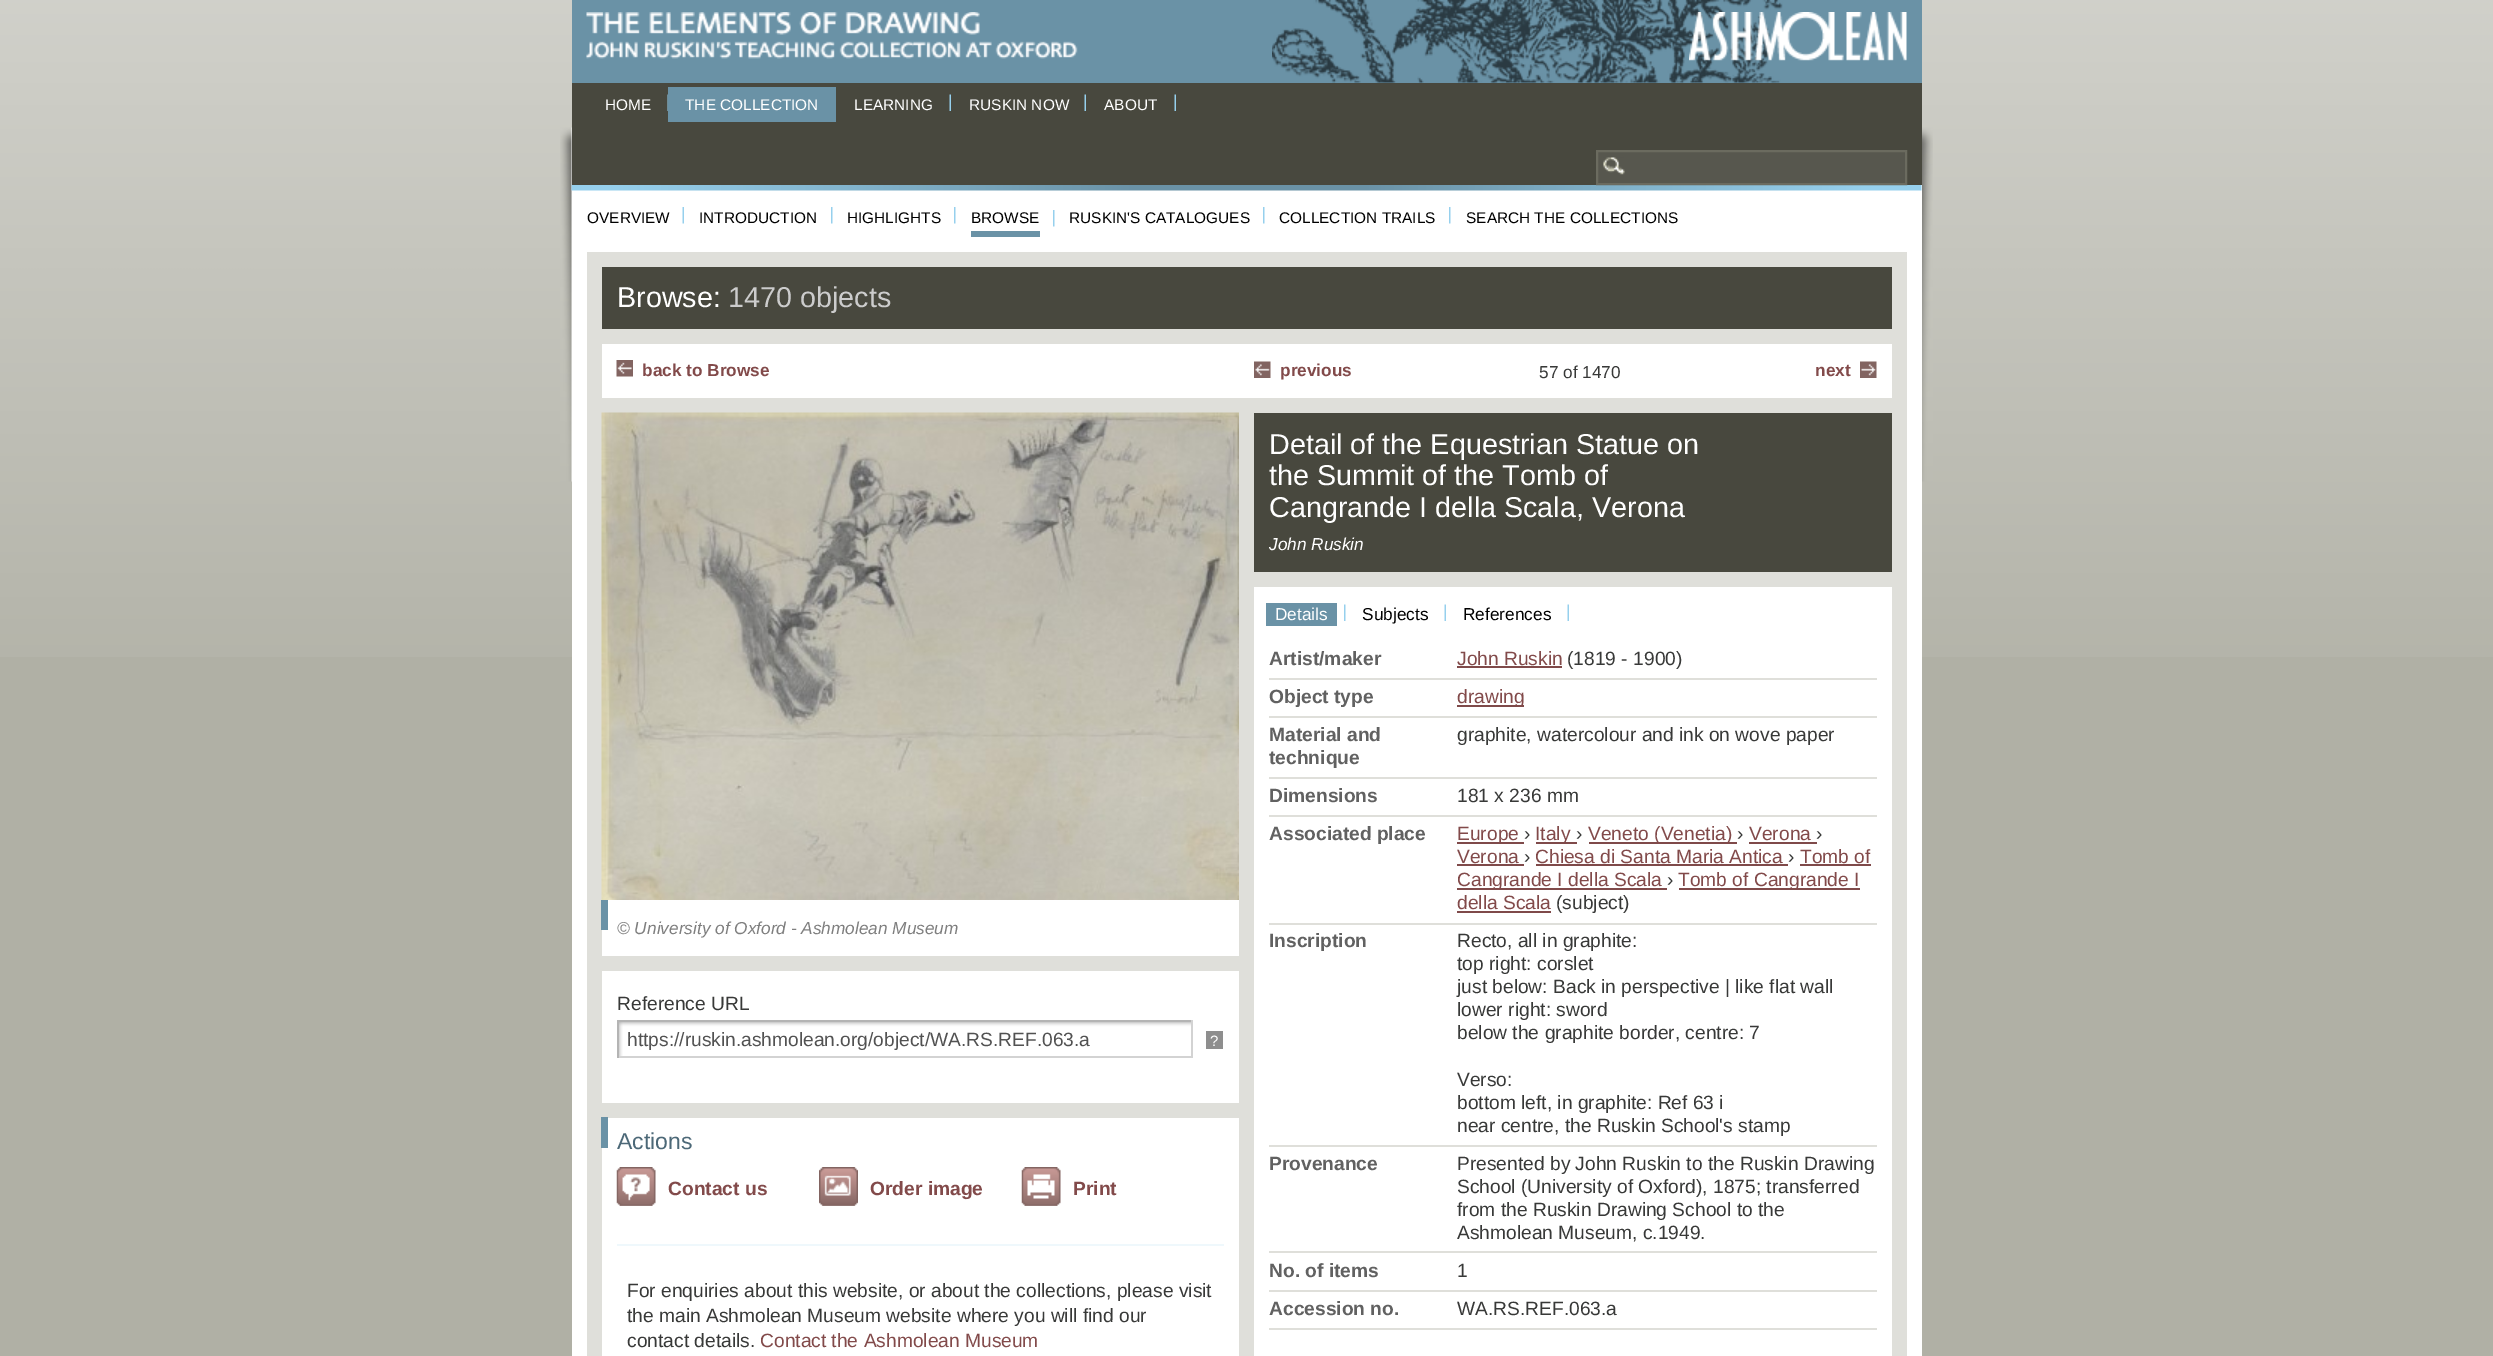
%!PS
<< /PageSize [2493 1356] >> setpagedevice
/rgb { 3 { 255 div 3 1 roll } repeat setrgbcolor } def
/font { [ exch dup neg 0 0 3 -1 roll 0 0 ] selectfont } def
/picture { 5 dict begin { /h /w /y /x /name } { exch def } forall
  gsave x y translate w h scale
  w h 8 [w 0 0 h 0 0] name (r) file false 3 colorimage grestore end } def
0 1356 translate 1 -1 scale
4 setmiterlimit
176 176 165 rgb
0 0 2493 1356 rectfill
(img/1.rgb) 0 0 2493 657 picture
(img/2.rgb) 560 127 1373 355 picture
106 146 166 rgb
572 0 1350 83 rectfill
(img/3.rgb) 1272 0 511 83 picture
(img/4.rgb) 586 12 492 47 picture
(img/5.rgb) 1689 12 218 49 picture
255 255 255 rgb
572 185 1350 1171 rectfill
(img/9.rgb) 571 184 1351 7 picture
72 72 62 rgb
572 83 1350 102 rectfill
(img/6.rgb) 667 94 1 17 picture
106 146 166 rgb
668 87 168 35 rectfill
(img/7.rgb) 949 94 2 17 picture
(img/7.rgb) 1084 94 2 17 picture
(img/7.rgb) 1174 94 2 17 picture
87 87 78 rgb
1598 152 307 31 rectfill
(img/8.rgb) 1603 157 22 18 picture
107 107 95 rgb
2 setlinewidth
1597 151 309 33 rectstroke
(img/10.rgb) 682 207 2 17 picture
(img/11.rgb) 831 207 2 17 picture
(img/11.rgb) 954 207 2 17 picture
(img/11.rgb) 1053 210 2 17 picture
106 146 166 rgb
971 231 69 6 rectfill
(img/11.rgb) 1263 207 2 17 picture
(img/11.rgb) 1449 207 2 17 picture
[
  [587 252 1320 1104 223 223 218]
  [602 267 1290 62 72 72 62]
  [602 344 1290 54 255 255 255]
] { aload pop rgb rectfill } forall
(img/12.rgb) 616 360 17 17 picture
(img/13.rgb) 1254 361 17 17 picture
(img/14.rgb) 1860 361 17 17 picture
602 900 637 456 rectfill
(img/15.rgb) 601 412 638 488 picture
[
  [601 900 7 30 106 146 166]
  [602 956 637 15 223 223 218]
  [602 1103 637 15 223 223 218]
] { aload pop rgb rectfill } forall
(img/16.rgb) 619 1022 572 34 picture
[
  [617 1020 576 2 180 180 180]
  [1191 1020 2 38 211 211 211]
  [617 1056 576 2 211 211 211]
  [617 1020 2 38 180 180 180]
  [1206 1031 17 18 142 142 142]
  [601 1117 7 31 106 146 166]
] { aload pop rgb rectfill } forall
(img/17.rgb) 616 1167 40 39 picture
(img/18.rgb) 819 1167 39 39 picture
(img/19.rgb) 1021 1167 40 39 picture
[
  [617 1244 607 2 239 248 252]
  [1254 587 638 769 255 255 255]
  [1254 413 638 159 72 72 62]
] { aload pop rgb rectfill } forall
(img/20.rgb) 1344 604 2 17 picture
106 146 166 rgb
1266 603 71 23 rectfill
(img/21.rgb) 1444 604 2 17 picture
(img/21.rgb) 1567 604 2 17 picture
[
  [1269 678 608 2 223 223 218]
  [1457 666 105 2 127 74 74]
  [1269 716 608 2 223 223 218]
  [1457 705 67 2 127 74 74]
  [1269 777 608 2 223 223 218]
  [1269 815 608 2 223 223 218]
  [1269 923 608 2 223 223 218]
  [1457 842 67 2 127 74 74]
  [1536 842 41 2 127 74 74]
  [1589 842 148 2 127 74 74]
  [1749 842 68 2 127 74 74]
  [1457 864 67 2 127 74 74]
  [1536 864 252 2 127 74 74]
  [1800 864 71 2 127 74 74]
  [1457 888 210 2 127 74 74]
  [1679 888 181 2 127 74 74]
  [1457 911 94 2 127 74 74]
  [1269 1145 608 2 223 223 218]
  [1269 1251 608 2 223 223 218]
  [1269 1290 608 2 223 223 218]
  [1269 1328 608 2 223 223 218]
] { aload pop rgb rectfill } forall
/LiberationSans-Regular 15.4 font
255 255 255 rgb
[
  [(HOME) 605 110]
  [(THE COLLECTION) 685 110]
  [(LEARNING) 854 110]
  [(RUSKIN NOW) 969 110]
  [(ABOUT) 1104 110]
] { aload pop moveto show } forall
0 0 0 rgb
[
  [(OVERVIEW) 587 223]
  [(INTRODUCTION) 699 223]
  [(HIGHLIGHTS) 847 223]
  [(BROWSE) 971 223]
  [(RUSKIN'S CATALOGUES) 1069 223]
  [(COLLECTION TRAILS) 1279 223]
  [(SEARCH THE COLLECTIONS) 1466 223]
] { aload pop moveto show } forall
/LiberationSans-Regular 28.75 font
255 255 255 rgb
617 307 moveto (Browse:) show
204 204 204 rgb
728 307 moveto (1470 objects) show
/LiberationSans-Bold 17.25 font
130 74 74 rgb
642 376 moveto (back to Browse) show
1280 376 moveto (previous) show
/LiberationSans-Regular 17.25 font
56 57 56 rgb
1539 378 moveto (57 of 1470) show
/LiberationSans-Bold 17.25 font
130 74 74 rgb
1815 376 moveto (next) show
/LiberationSans-Italic 17.25 font
127 127 127 rgb
617 934 moveto (© University of Oxford - Ashmolean Museum) show
/LiberationSans-Regular 19.2 font
56 57 56 rgb
617 1010 moveto (Reference URL) show
82 82 82 rgb
627 1046 moveto (https://ruskin.ashmolean.org/object/WA.RS.REF.063.a) show
/LiberationSans-Regular 15 font
255 255 255 rgb
1210 1046 moveto (?) show
/LiberationSans-Regular 23 font
76 104 119 rgb
617 1149 moveto (Actions) show
/LiberationSans-Bold 19.2 font
130 74 74 rgb
[
  [(Contact us) 668 1195]
  [(Order image) 870 1195]
  [(Print) 1073 1195]
] { aload pop moveto show } forall
/LiberationSans-Regular 19.2 font
56 57 56 rgb
[
  [(For enquiries about this website, or about the collections, please visit) 627 1297]
  [(the main Ashmolean Museum website where you will find our) 627 1322]
  [(contact details.) 627 1347]
] { aload pop moveto show } forall
130 74 74 rgb
760 1347 moveto (Contact the Ashmolean Museum) show
/LiberationSans-Regular 28.75 font
255 255 255 rgb
[
  [(Detail of the Equestrian Statue on) 1269 454]
  [(the Summit of the Tomb of) 1269 485]
  [(Cangrande I della Scala, Verona) 1269 517]
] { aload pop moveto show } forall
/LiberationSans-Italic 17.25 font
1269 550 moveto (John Ruskin) show
/LiberationSans-Regular 17.25 font
1275 620 moveto (Details) show
0 0 0 rgb
1362 620 moveto (Subjects) show
1463 620 moveto (References) show
/LiberationSans-Bold 19.2 font
97 97 97 rgb
1269 665 moveto (Artist/maker) show
/LiberationSans-Regular 19.2 font
130 74 74 rgb
1457 665 moveto (John Ruskin) show
56 57 56 rgb
1567 665 moveto (\(1819 - 1900\)) show
/LiberationSans-Bold 19.2 font
97 97 97 rgb
1269 703 moveto (Object type) show
/LiberationSans-Regular 19.2 font
130 74 74 rgb
1457 703 moveto (drawing) show
/LiberationSans-Bold 19.2 font
97 97 97 rgb
1269 741 moveto (Material and) show
1269 764 moveto (technique) show
/LiberationSans-Regular 19.2 font
56 57 56 rgb
1457 741 moveto (graphite, watercolour and ink on wove paper) show
/LiberationSans-Bold 19.2 font
97 97 97 rgb
1269 802 moveto (Dimensions) show
/LiberationSans-Regular 19.2 font
56 57 56 rgb
1457 802 moveto (181 x 236 mm) show
/LiberationSans-Bold 19.2 font
97 97 97 rgb
1269 840 moveto (Associated place) show
/LiberationSans-Regular 19.2 font
130 74 74 rgb
1457 840 moveto (Europe) show
56 57 56 rgb
1524 840 moveto (›) show
130 74 74 rgb
1535 840 moveto (Italy) show
56 57 56 rgb
1576 840 moveto (›) show
130 74 74 rgb
1588 840 moveto (Veneto \(Venetia\)) show
56 57 56 rgb
1737 840 moveto (›) show
130 74 74 rgb
1749 840 moveto (Verona) show
56 57 56 rgb
1816 840 moveto (›) show
130 74 74 rgb
1457 863 moveto (Verona) show
56 57 56 rgb
1524 863 moveto (›) show
130 74 74 rgb
1535 863 moveto (Chiesa di Santa Maria Antica) show
56 57 56 rgb
1788 863 moveto (›) show
130 74 74 rgb
1800 863 moveto (Tomb of) show
1457 886 moveto (Cangrande I della Scala) show
56 57 56 rgb
1667 886 moveto (›) show
130 74 74 rgb
1678 886 moveto (Tomb of Cangrande I) show
1457 909 moveto (della Scala) show
56 57 56 rgb
1556 909 moveto (\(subject\)) show
/LiberationSans-Bold 19.2 font
97 97 97 rgb
1269 947 moveto (Inscription) show
/LiberationSans-Regular 19.2 font
56 57 56 rgb
[
  [(Recto, all in graphite:) 1457 947]
  [(top right: corslet) 1457 970]
  [(just below: Back in perspective | like flat wall) 1457 993]
  [(lower right: sword) 1457 1016]
  [(below the graphite border, centre: 7) 1457 1039]
  [(Verso:) 1457 1086]
  [(bottom left, in graphite: Ref 63 i) 1457 1109]
  [(near centre, the Ruskin School's stamp) 1457 1132]
] { aload pop moveto show } forall
/LiberationSans-Bold 19.2 font
97 97 97 rgb
1269 1170 moveto (Provenance) show
/LiberationSans-Regular 19.2 font
56 57 56 rgb
[
  [(Presented by John Ruskin to the Ruskin Drawing) 1457 1170]
  [(School \(University of Oxford\), 1875; transferred) 1457 1193]
  [(from the Ruskin Drawing School to the) 1457 1216]
  [(Ashmolean Museum, c.1949.) 1457 1239]
] { aload pop moveto show } forall
/LiberationSans-Bold 19.2 font
97 97 97 rgb
1269 1277 moveto (No. of items) show
/LiberationSans-Regular 19.2 font
56 57 56 rgb
1457 1277 moveto (1) show
/LiberationSans-Bold 19.2 font
97 97 97 rgb
1269 1315 moveto (Accession no.) show
/LiberationSans-Regular 19.2 font
56 57 56 rgb
1457 1315 moveto (WA.RS.REF.063.a) show
showpage
